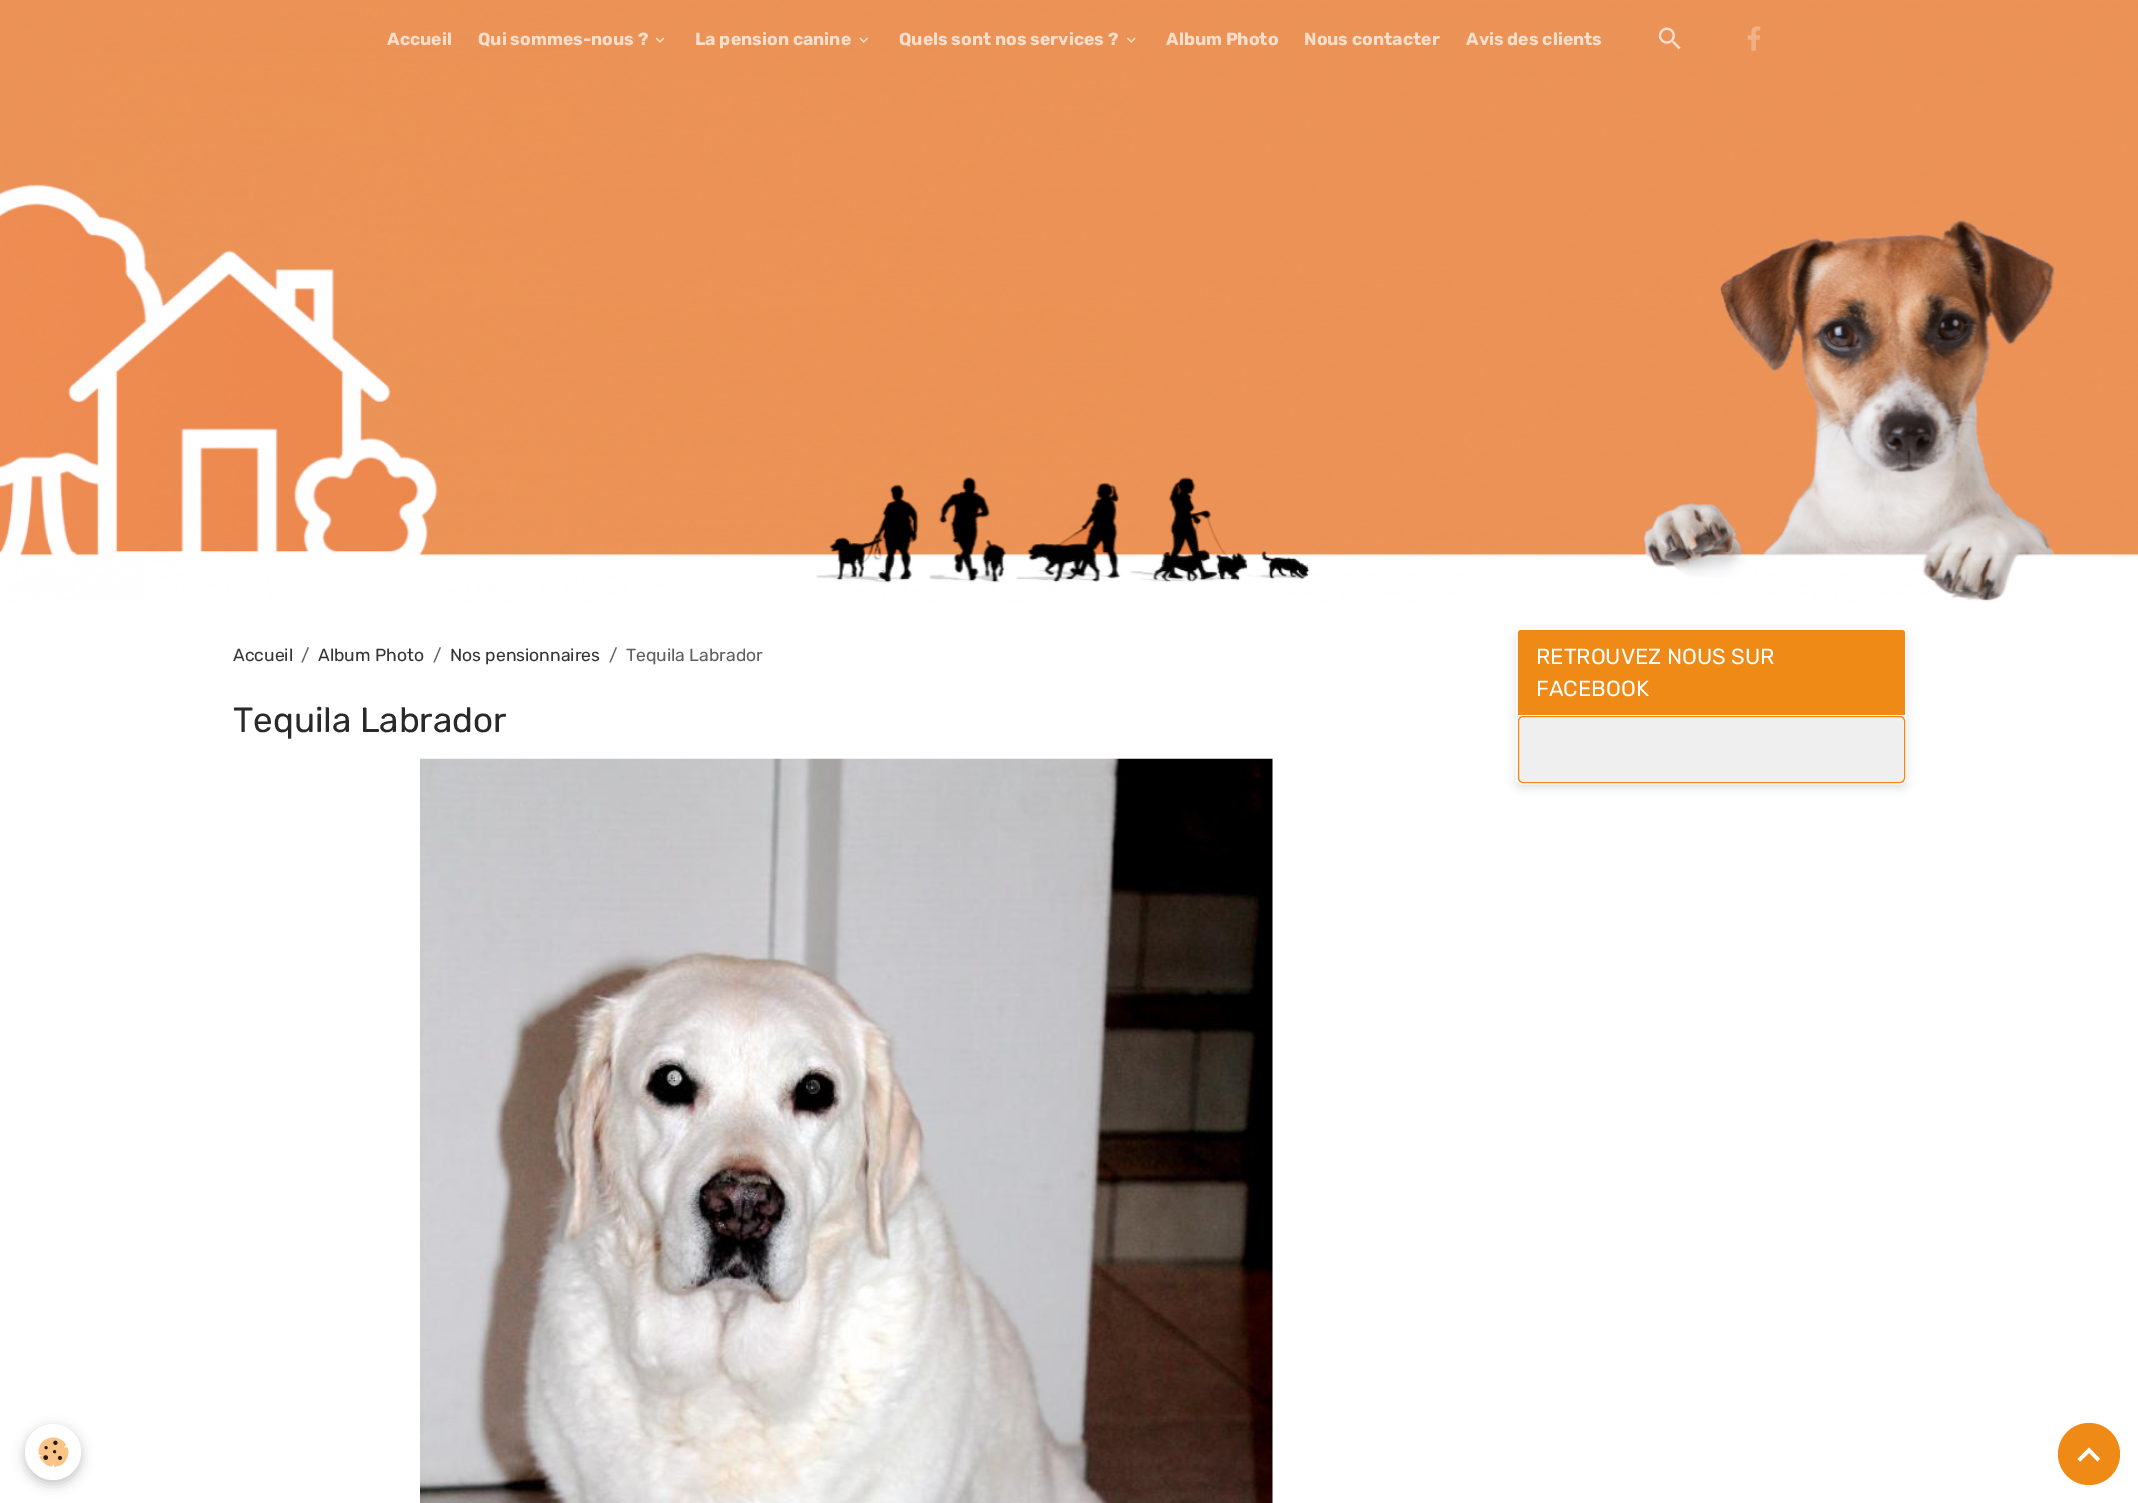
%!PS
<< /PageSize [2138 1503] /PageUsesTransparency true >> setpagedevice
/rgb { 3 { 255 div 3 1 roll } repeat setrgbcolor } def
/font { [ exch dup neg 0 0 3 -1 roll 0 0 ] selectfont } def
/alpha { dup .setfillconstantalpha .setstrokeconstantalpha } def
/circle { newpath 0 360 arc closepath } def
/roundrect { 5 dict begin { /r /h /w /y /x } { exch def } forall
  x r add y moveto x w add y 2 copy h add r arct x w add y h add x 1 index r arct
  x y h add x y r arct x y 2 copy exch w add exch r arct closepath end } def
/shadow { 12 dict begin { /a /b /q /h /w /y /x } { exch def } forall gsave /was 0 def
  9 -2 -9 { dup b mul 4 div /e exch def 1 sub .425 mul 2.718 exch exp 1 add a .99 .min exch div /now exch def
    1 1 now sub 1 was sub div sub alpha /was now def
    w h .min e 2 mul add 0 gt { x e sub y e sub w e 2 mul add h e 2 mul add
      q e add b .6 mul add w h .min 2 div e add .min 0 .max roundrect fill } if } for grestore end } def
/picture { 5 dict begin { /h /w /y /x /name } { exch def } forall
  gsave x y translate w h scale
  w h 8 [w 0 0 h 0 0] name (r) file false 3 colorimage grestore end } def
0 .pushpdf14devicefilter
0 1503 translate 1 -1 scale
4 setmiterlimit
255 255 255 rgb
0 0 2138 1503 rectfill
(img/1.rgb) 0 0 2138 602 picture
(img/2.rgb) 655 37 10 6 picture
(img/3.rgb) 859 37 9 6 picture
(img/4.rgb) 1127 37 9 6 picture
(img/5.rgb) 1658 27 23 23 picture
(img/6.rgb) 1747 26 14 25 picture
(img/7.rgb) 420 758 853 745 picture
55 59 62 rgb
1516 633 390 155 5 4.5 0.15 shadow
239 239 239 rgb
1516.5 629.5 389 154 4.5 roundrect gsave fill grestore
255 255 255 rgb
stroke
238 138 21 rgb
1521 630 moveto 1902 630 lineto 1903.5 630 1905 631.5 1905 633 curveto 1905 716 lineto 1518 716 lineto 1518 633 lineto 1518 631.5 1519.5 630 1521 630 curveto closepath fill
255 255 255 rgb
1518 715 387 1 rectfill
238 138 21 rgb
1518.5 716.5 386 66 4.5 roundrect stroke
0 0 0 rgb
25 1428 56 56 28 6 0.24 shadow
255 255 255 rgb
53 1452 28 circle fill
(img/8.rgb) 38 1437 31 30 picture
238 138 21 rgb
2089 1454 31 circle fill
255 255 255 rgb
2089 1447.5 moveto 2100 1459 lineto 2097.5 1461.5 lineto 2089 1453 lineto 2080 1461.5 lineto 2077.5 1459 lineto closepath fill
/Rubik-Bold 17.5 font
249 222 204 rgb
[
  [(Accueil) 387 45]
  [(Qui sommes-nous ?) 478 45]
  [(La pension canine) 695 45]
  [(Quels sont nos services ?) 899 45]
  [(Album Photo) 1166 45]
  [(Nous contacter) 1304 45]
  [(Avis des clients) 1466 45]
] { aload pop moveto show } forall
/Rubik-Regular 17.5 font
52 52 52 rgb
233 661 moveto (Accueil) show
95 95 95 rgb
301 661 moveto (/) show
52 52 52 rgb
318 661 moveto (Album Photo) show
95 95 95 rgb
433 661 moveto (/) show
52 52 52 rgb
450 661 moveto (Nos pensionnaires) show
95 95 95 rgb
609 661 moveto (/) show
626 661 moveto (Tequila Labrador) show
/Rubik-Regular 35 font
41 41 41 rgb
233 732 moveto (Tequila Labrador) show
/Rubik-Regular 21.9 font
255 255 255 rgb
1536 664 moveto (RETROUVEZ NOUS SUR) show
1536 696 moveto (FACEBOOK) show
.poppdf14devicefilter showpage
